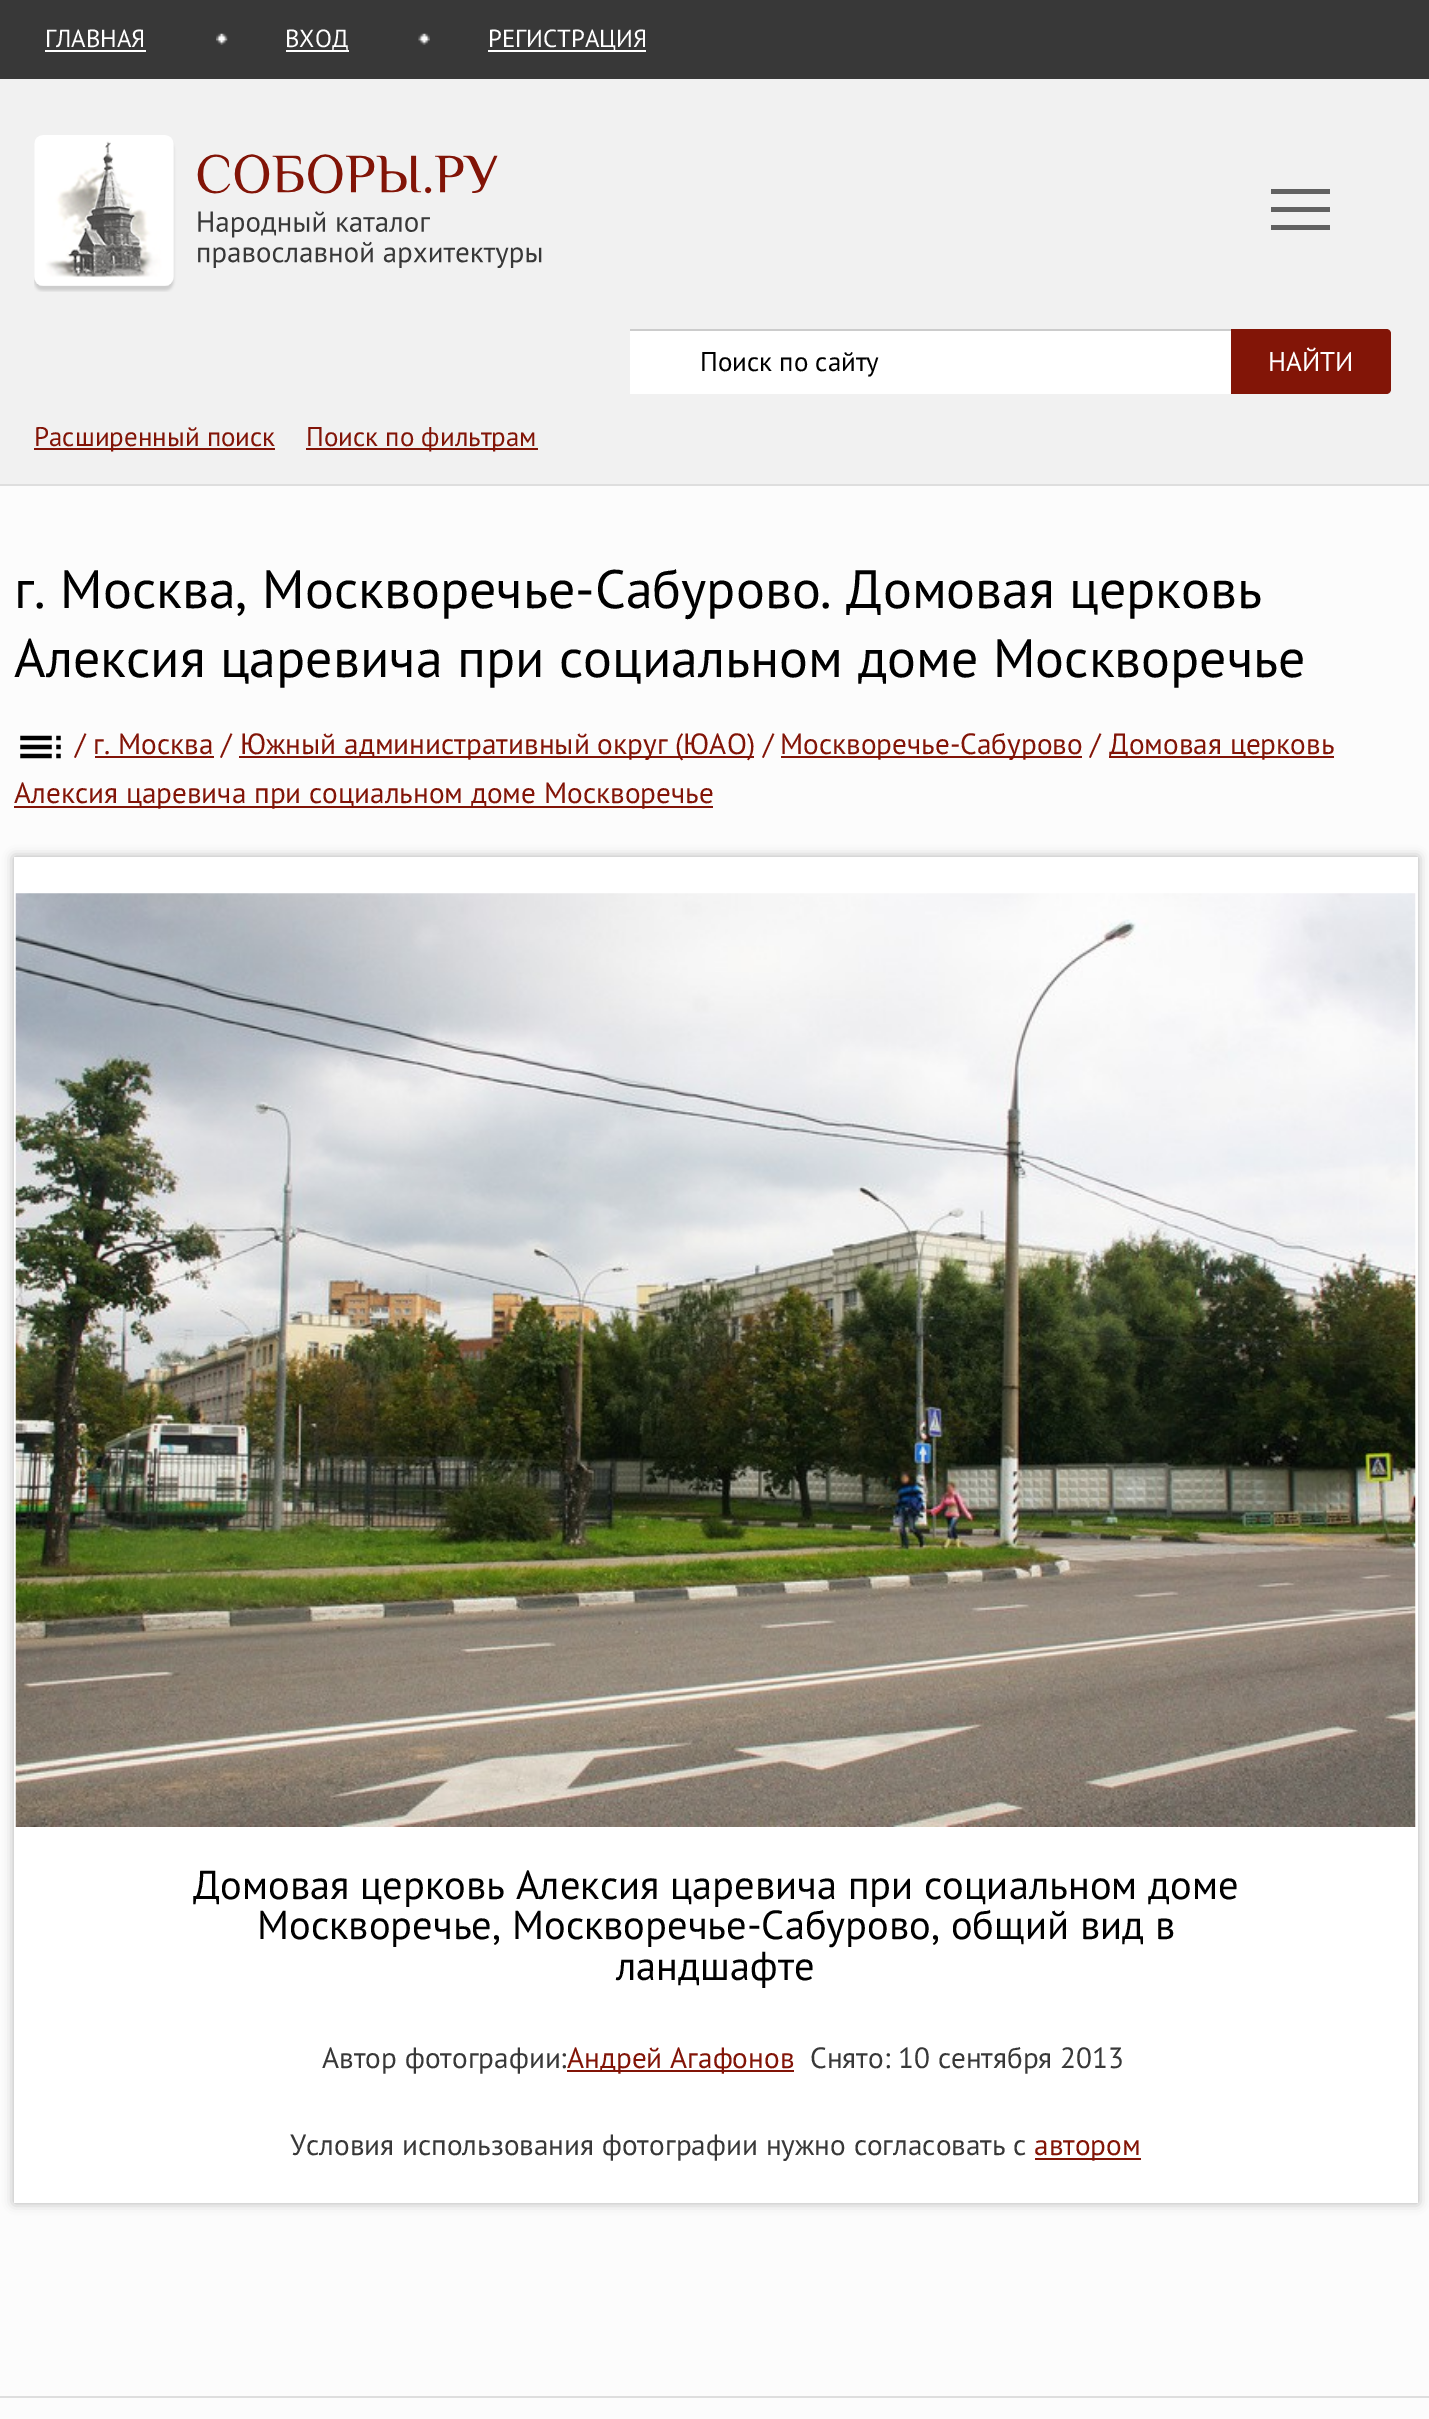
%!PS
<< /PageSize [1429 2419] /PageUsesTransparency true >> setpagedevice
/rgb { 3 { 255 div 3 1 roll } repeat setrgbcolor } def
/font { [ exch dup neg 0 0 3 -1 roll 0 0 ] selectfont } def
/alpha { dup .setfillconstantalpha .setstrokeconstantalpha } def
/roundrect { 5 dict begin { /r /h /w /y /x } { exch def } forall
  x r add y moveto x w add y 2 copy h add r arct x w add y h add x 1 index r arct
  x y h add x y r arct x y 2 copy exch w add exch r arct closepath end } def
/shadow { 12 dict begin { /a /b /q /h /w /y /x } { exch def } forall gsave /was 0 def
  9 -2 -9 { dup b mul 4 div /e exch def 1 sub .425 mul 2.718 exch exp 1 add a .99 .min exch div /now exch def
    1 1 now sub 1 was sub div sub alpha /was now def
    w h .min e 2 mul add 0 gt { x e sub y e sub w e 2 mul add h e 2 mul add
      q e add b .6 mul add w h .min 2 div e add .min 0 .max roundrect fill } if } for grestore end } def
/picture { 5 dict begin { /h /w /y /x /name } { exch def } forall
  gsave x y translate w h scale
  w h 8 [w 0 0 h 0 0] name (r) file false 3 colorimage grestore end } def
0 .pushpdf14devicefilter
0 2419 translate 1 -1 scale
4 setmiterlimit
252 252 252 rgb
0 0 1429 2419 rectfill
56 56 56 rgb
0 0 1429 79 rectfill
255 255 255 rgb
45 50 101 2 rectfill
(img/1.rgb) 216 33 12 12 picture
286 50 63 2 rectfill
(img/2.rgb) 418 33 12 12 picture
[
  [488 50 158 2 255 255 255]
  [0 79 1429 405 241 241 241]
  [0 484 1429 2 222 222 222]
] { aload pop rgb rectfill } forall
(img/3.rgb) 34 135 508 157 picture
[
  [1271 207 59 5 97 97 97]
  [1271 189 59 5 97 97 97]
  [1271 225 59 5 97 97 97]
  [630 331 601 63 255 255 255]
  [630 329 601 2 204 204 204]
] { aload pop rgb rectfill } forall
130 21 7 rgb
1231 329 moveto 1386 329 lineto 1389 329 1391 331 1391 334 curveto 1391 389 lineto 1391 392 1389 394 1386 394 curveto 1231 394 lineto closepath fill
130 20 7 rgb
34 448 241 2 rectfill
306 448 232 2 rectfill
(img/4.rgb) 20 735 41 24 picture
[
  [95 756 119 2 130 20 7]
  [239 756 515 2 130 20 7]
  [781 756 301 2 130 20 7]
  [1109 756 225 2 130 20 7]
  [14 806 699 2 130 20 7]
] { aload pop rgb rectfill } forall
0 0 0 rgb
14 857 1404 1346 0 5.5 0.3 shadow
255 255 255 rgb
14 857 1404 1346 rectfill
(img/5.rgb) 15 893 1401 934 picture
[
  [567 2070 227 2 130 20 7]
  [1035 2158 106 2 130 20 7]
  [0 2396 1429 2 222 222 222]
] { aload pop rgb rectfill } forall
/PTSans-Regular 24.75 font
255 255 255 rgb
[
  [(ГЛАВНАЯ) 45 47]
  [(ВХОД) 285 47]
  [(РЕГИСТРАЦИЯ) 488 47]
] { aload pop moveto show } forall
/PTSans-Regular 27 font
0 0 0 rgb
700 371 moveto (Поиск по сайту) show
255 255 255 rgb
1268 371 moveto (НАЙТИ) show
130 20 7 rgb
34 446 moveto (Расширенный поиск) show
306 446 moveto (Поиск по фильтрам) show
/PTSans-Regular 54 font
0 0 0 rgb
14 608 moveto (г. Москва, Москворечье-Сабурово. Домовая церковь) show
14 677 moveto (Алексия царевича при социальном доме Москворечье) show
/PTSans-Regular 29.25 font
130 20 7 rgb
[
  [(/ г. Москва /) 75 754]
  [(Южный административный округ \(ЮАО\) /) 240 754]
  [(Москворечье-Сабурово /) 780 754]
  [(Домовая церковь) 1109 754]
  [(Алексия царевича при социальном доме Москворечье) 14 803]
] { aload pop moveto show } forall
/PTSans-Regular 40.5 font
0 0 0 rgb
[
  [(Домовая церковь Алексия царевича при социальном доме) 193 1899]
  [(Москворечье, Москворечье-Сабурово, общий вид в) 257 1939]
  [(ландшафте) 616 1980]
] { aload pop moveto show } forall
/PTSans-Regular 29.25 font
56 56 56 rgb
322 2068 moveto (Автор фотографии:) show
130 20 7 rgb
567 2068 moveto (Андрей Агафонов) show
56 56 56 rgb
810 2068 moveto (Снято: 10 сентября 2013) show
290 2155 moveto (Условия использования фотографии нужно согласовать с) show
130 20 7 rgb
1034 2155 moveto (автором) show
.poppdf14devicefilter showpage
